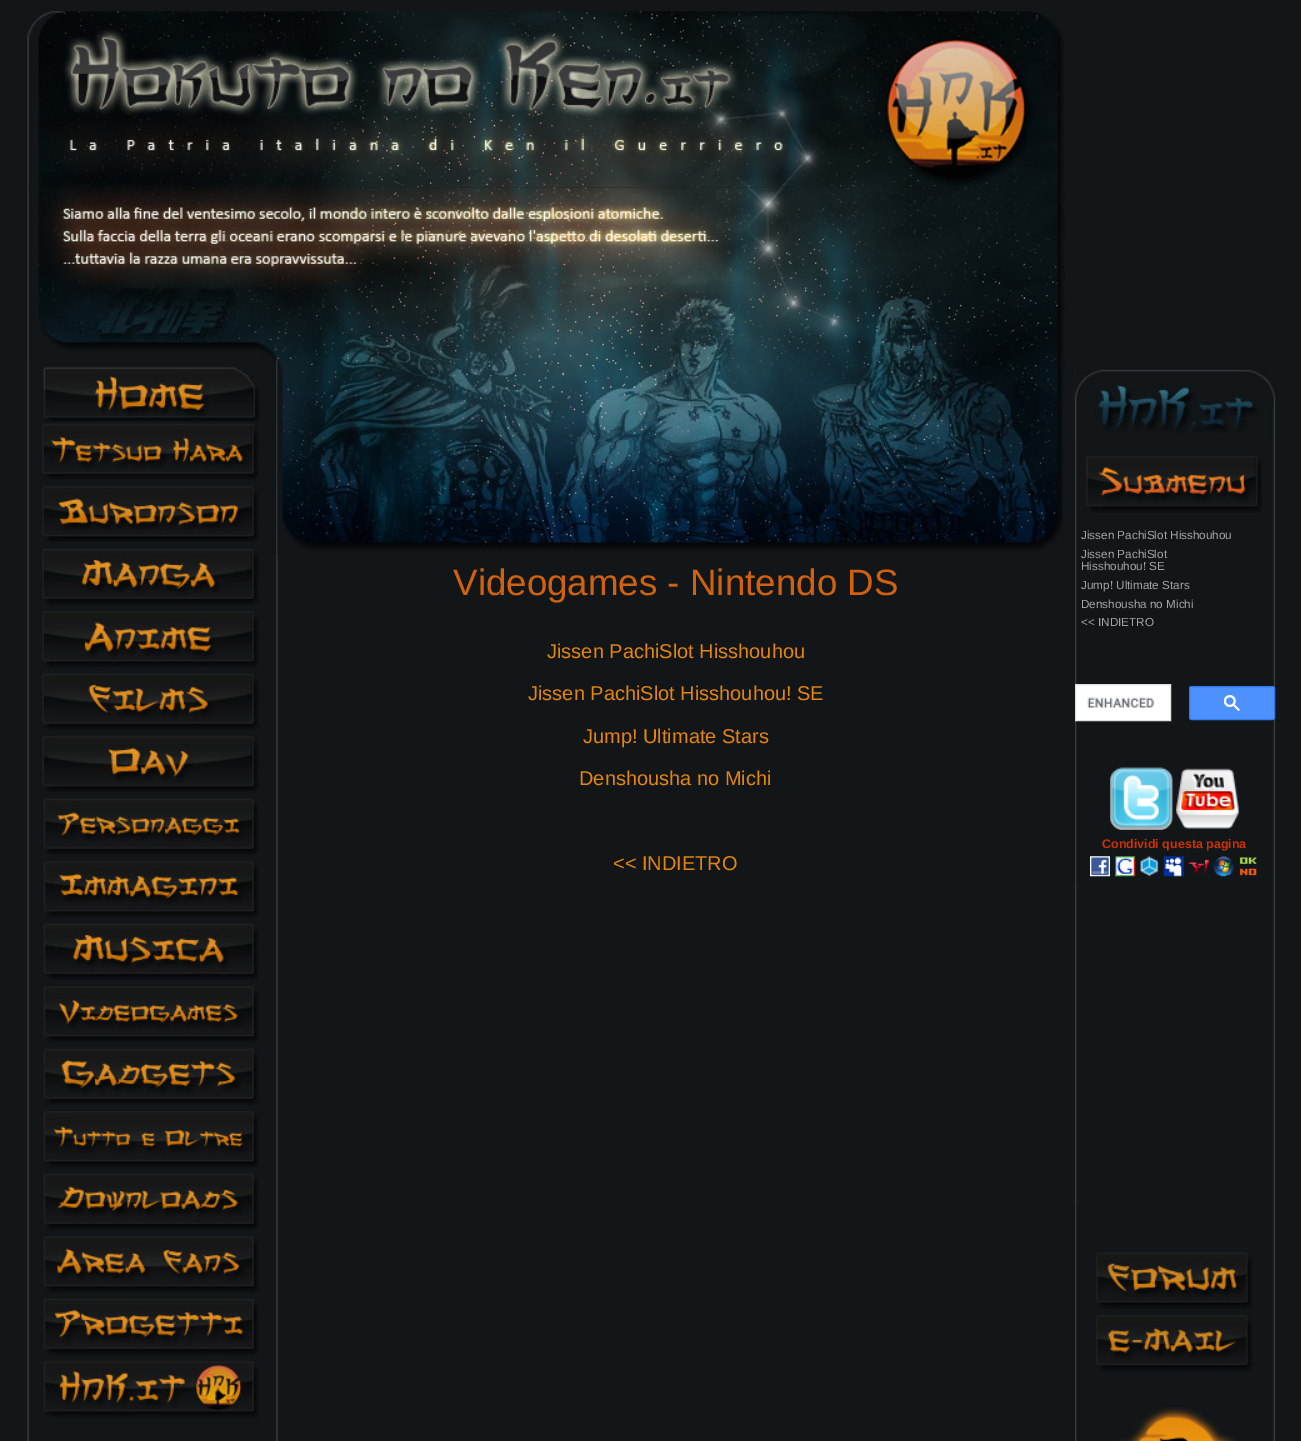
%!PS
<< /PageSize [1301 1441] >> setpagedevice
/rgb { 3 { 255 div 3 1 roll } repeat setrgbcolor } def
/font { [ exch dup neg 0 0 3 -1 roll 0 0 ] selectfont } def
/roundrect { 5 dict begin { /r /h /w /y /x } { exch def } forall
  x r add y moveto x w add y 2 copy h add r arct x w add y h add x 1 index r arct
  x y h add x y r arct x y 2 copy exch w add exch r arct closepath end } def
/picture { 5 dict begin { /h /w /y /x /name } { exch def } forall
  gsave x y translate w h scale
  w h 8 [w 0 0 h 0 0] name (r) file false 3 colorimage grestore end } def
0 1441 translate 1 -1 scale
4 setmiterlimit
18 22 24 rgb
0 0 1301 1441 rectfill
(img/1.rgb) 27 365 1249 1076 picture
(img/2.rgb) 27 10 1037 178 picture
(img/3.rgb) 27 187 1038 178 picture
(img/4.rgb) 43 367 217 55 picture
(img/5.rgb) 42 423 217 57 picture
(img/6.rgb) 42 486 217 56 picture
(img/7.rgb) 42 548 217 57 picture
(img/8.rgb) 42 611 217 56 picture
(img/9.rgb) 42 673 217 57 picture
(img/10.rgb) 40 736 219 56 picture
(img/11.rgb) 43 798 216 57 picture
(img/12.rgb) 43 861 216 57 picture
(img/13.rgb) 43 923 216 57 picture
(img/14.rgb) 43 986 216 57 picture
(img/15.rgb) 43 1048 216 57 picture
(img/16.rgb) 43 1111 216 57 picture
(img/17.rgb) 43 1173 216 57 picture
(img/18.rgb) 43 1236 216 57 picture
(img/19.rgb) 43 1298 216 57 picture
(img/20.rgb) 43 1359 216 59 picture
(img/21.rgb) 277 365 786 190 picture
(img/22.rgb) 1075 365 201 76 picture
(img/23.rgb) 1086 455 176 58 picture
255 255 255 rgb
1075.5 684.5 moveto 1170.5 684.5 lineto 1170.5 720.5 lineto 1075.5 720.5 lineto closepath gsave fill grestore
223 225 229 rgb
stroke
(img/24.rgb) 1087 697 67 11 picture
77 144 254 rgb
1189.5 686.5 85 33 2 roundrect gsave fill grestore
48 121 237 rgb
stroke
(img/25.rgb) 1224 695 16 16 picture
(img/26.rgb) 1110 767 63 63 picture
(img/27.rgb) 1176 768 63 61 picture
(img/28.rgb) 1090 856 20 21 picture
(img/29.rgb) 1115 856 20 21 picture
(img/30.rgb) 1140 856 19 21 picture
(img/31.rgb) 1163 856 21 21 picture
(img/32.rgb) 1188 859 21 15 picture
(img/33.rgb) 1213 856 21 21 picture
(img/34.rgb) 1239 857 18 19 picture
61 63 60 rgb
1075 882 1 324 rectfill
(img/35.rgb) 1096 1251 157 58 picture
(img/36.rgb) 1096 1313 157 58 picture
(img/37.rgb) 1118 1407 118 34 picture
/LiberationSans-Regular 36.75 font
207 97 15 rgb
453 595 moveto (Videogames - Nintendo DS) show
/LiberationSans-Regular 20 font
228 133 16 rgb
[
  [(Jissen PachiSlot Hisshouhou) 547 658]
  [(Jissen PachiSlot Hisshouhou! SE) 528 700]
  [(Jump! Ultimate Stars) 583 743]
  [(Denshousha no Michi) 579 785]
  [(<< INDIETRO) 613 870]
] { aload pop moveto show } forall
/LiberationSans-Regular 11.7 font
165 164 164 rgb
[
  [(Jissen PachiSlot Hisshouhou) 1081 539]
  [(Jissen PachiSlot) 1081 558]
  [(Hisshouhou! SE) 1081 570]
  [(Jump! Ultimate Stars) 1081 589]
  [(Denshousha no Michi) 1081 608]
  [(<< INDIETRO) 1081 626]
] { aload pop moveto show } forall
/LiberationSans-Bold 12.5 font
204 51 0 rgb
1102 848 moveto (Condividi questa pagina) show
showpage
